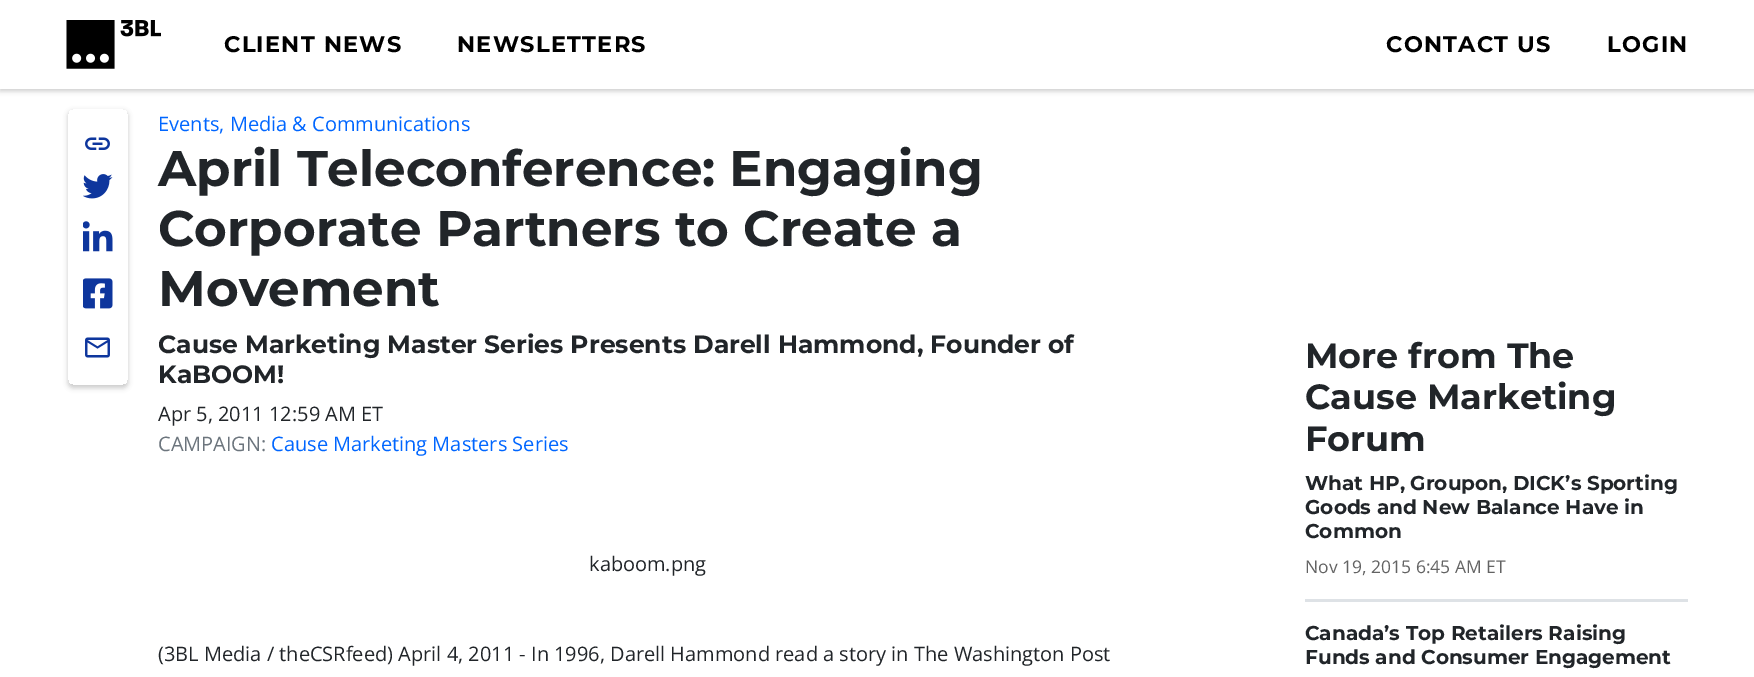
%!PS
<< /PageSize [1754 677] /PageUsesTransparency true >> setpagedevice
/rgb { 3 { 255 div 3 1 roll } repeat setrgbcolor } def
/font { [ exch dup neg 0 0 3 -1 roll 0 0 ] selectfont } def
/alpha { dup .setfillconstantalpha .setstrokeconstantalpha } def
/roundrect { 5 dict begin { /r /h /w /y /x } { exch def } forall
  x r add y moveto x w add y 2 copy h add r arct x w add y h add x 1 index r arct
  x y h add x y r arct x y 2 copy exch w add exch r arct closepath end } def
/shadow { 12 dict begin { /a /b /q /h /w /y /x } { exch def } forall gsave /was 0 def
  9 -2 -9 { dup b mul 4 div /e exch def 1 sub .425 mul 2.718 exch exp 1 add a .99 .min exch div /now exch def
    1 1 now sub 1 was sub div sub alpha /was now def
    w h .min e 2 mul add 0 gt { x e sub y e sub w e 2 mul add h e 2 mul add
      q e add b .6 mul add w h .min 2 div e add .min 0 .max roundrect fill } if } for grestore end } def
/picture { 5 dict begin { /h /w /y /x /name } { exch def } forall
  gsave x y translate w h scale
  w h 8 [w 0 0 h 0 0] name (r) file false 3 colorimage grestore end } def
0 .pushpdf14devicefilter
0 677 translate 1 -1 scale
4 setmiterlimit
255 255 255 rgb
0 0 1754 677 rectfill
0 0 0 rgb
0 3 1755 88 0 2.5 0.2 shadow
255 255 255 rgb
0 0 1754 89 rectfill
(img/1.rgb) 66 20 95 49 picture
gsave
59 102 moveto 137 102 lineto 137 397 lineto 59 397 lineto closepath 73 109 moveto 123 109 lineto 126 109 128 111 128 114 curveto 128 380 lineto 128 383 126 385 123 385 curveto 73 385 lineto 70 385 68 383 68 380 curveto 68 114 lineto 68 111 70 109 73 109 curveto closepath eoclip newpath
0 0 0 rgb
68 111 60 277 5 2.5 0.2 shadow
grestore
(img/2.rgb) 85 137 25 13 picture
(img/3.rgb) 83 174 30 25 picture
(img/4.rgb) 83 221 30 31 picture
(img/5.rgb) 83 278 30 31 picture
(img/6.rgb) 85 337 25 21 picture
222 226 230 rgb
1305 599 383 3 rectfill
/Montserrat-Bold 22.5 font
0 0 0 rgb
224 52 moveto 1.25 0 (CLIENT NEWS) ashow
457 52 moveto 1.25 0 (NEWSLETTERS) ashow
1386 52 moveto 1.25 0 (CONTACT US) ashow
1607 52 moveto 1.25 0 (LOGIN) ashow
/OpenSans-Regular 20 font
0 102 255 rgb
158 131 moveto (Events, Media & Communications) show
/Montserrat-Bold 50 font
33 37 41 rgb
[
  [(April Teleconference: Engaging) 158 186]
  [(Corporate Partners to Create a) 158 246]
  [(Movement) 158 306]
] { aload pop moveto show } forall
/Montserrat-Bold 25 font
158 353 moveto (Cause Marketing Master Series Presents Darell Hammond, Founder of) show
158 383 moveto (KaBOOM!) show
/OpenSans-Regular 20 font
158 421 moveto (Apr 5, 2011 12:59 AM ET) show
108 117 125 rgb
158 451 moveto (CAMPAIGN:) show
0 102 255 rgb
271 451 moveto (Cause Marketing Masters Series) show
33 37 41 rgb
589 571 moveto (kaboom.png) show
158 661 moveto (\(3BL Media / theCSRfeed\) April 4, 2011 - In 1996, Darell Hammond read a story in The Washington Post) show
/Montserrat-Bold 35 font
[
  [(More from The) 1305 368]
  [(Cause Marketing) 1305 409]
  [(Forum) 1305 451]
] { aload pop moveto show } forall
/Montserrat-Bold 20 font
[
  [(What HP, Groupon, DICK’s Sporting) 1305 490]
  [(Goods and New Balance Have in) 1305 514]
  [(Common) 1305 538]
] { aload pop moveto show } forall
/OpenSans-Regular 17.5 font
99 99 99 rgb
1305 573 moveto (Nov 19, 2015 6:45 AM ET) show
/Montserrat-Bold 20 font
33 37 41 rgb
1305 640 moveto (Canada’s Top Retailers Raising) show
1305 664 moveto (Funds and Consumer Engagement) show
.poppdf14devicefilter showpage
